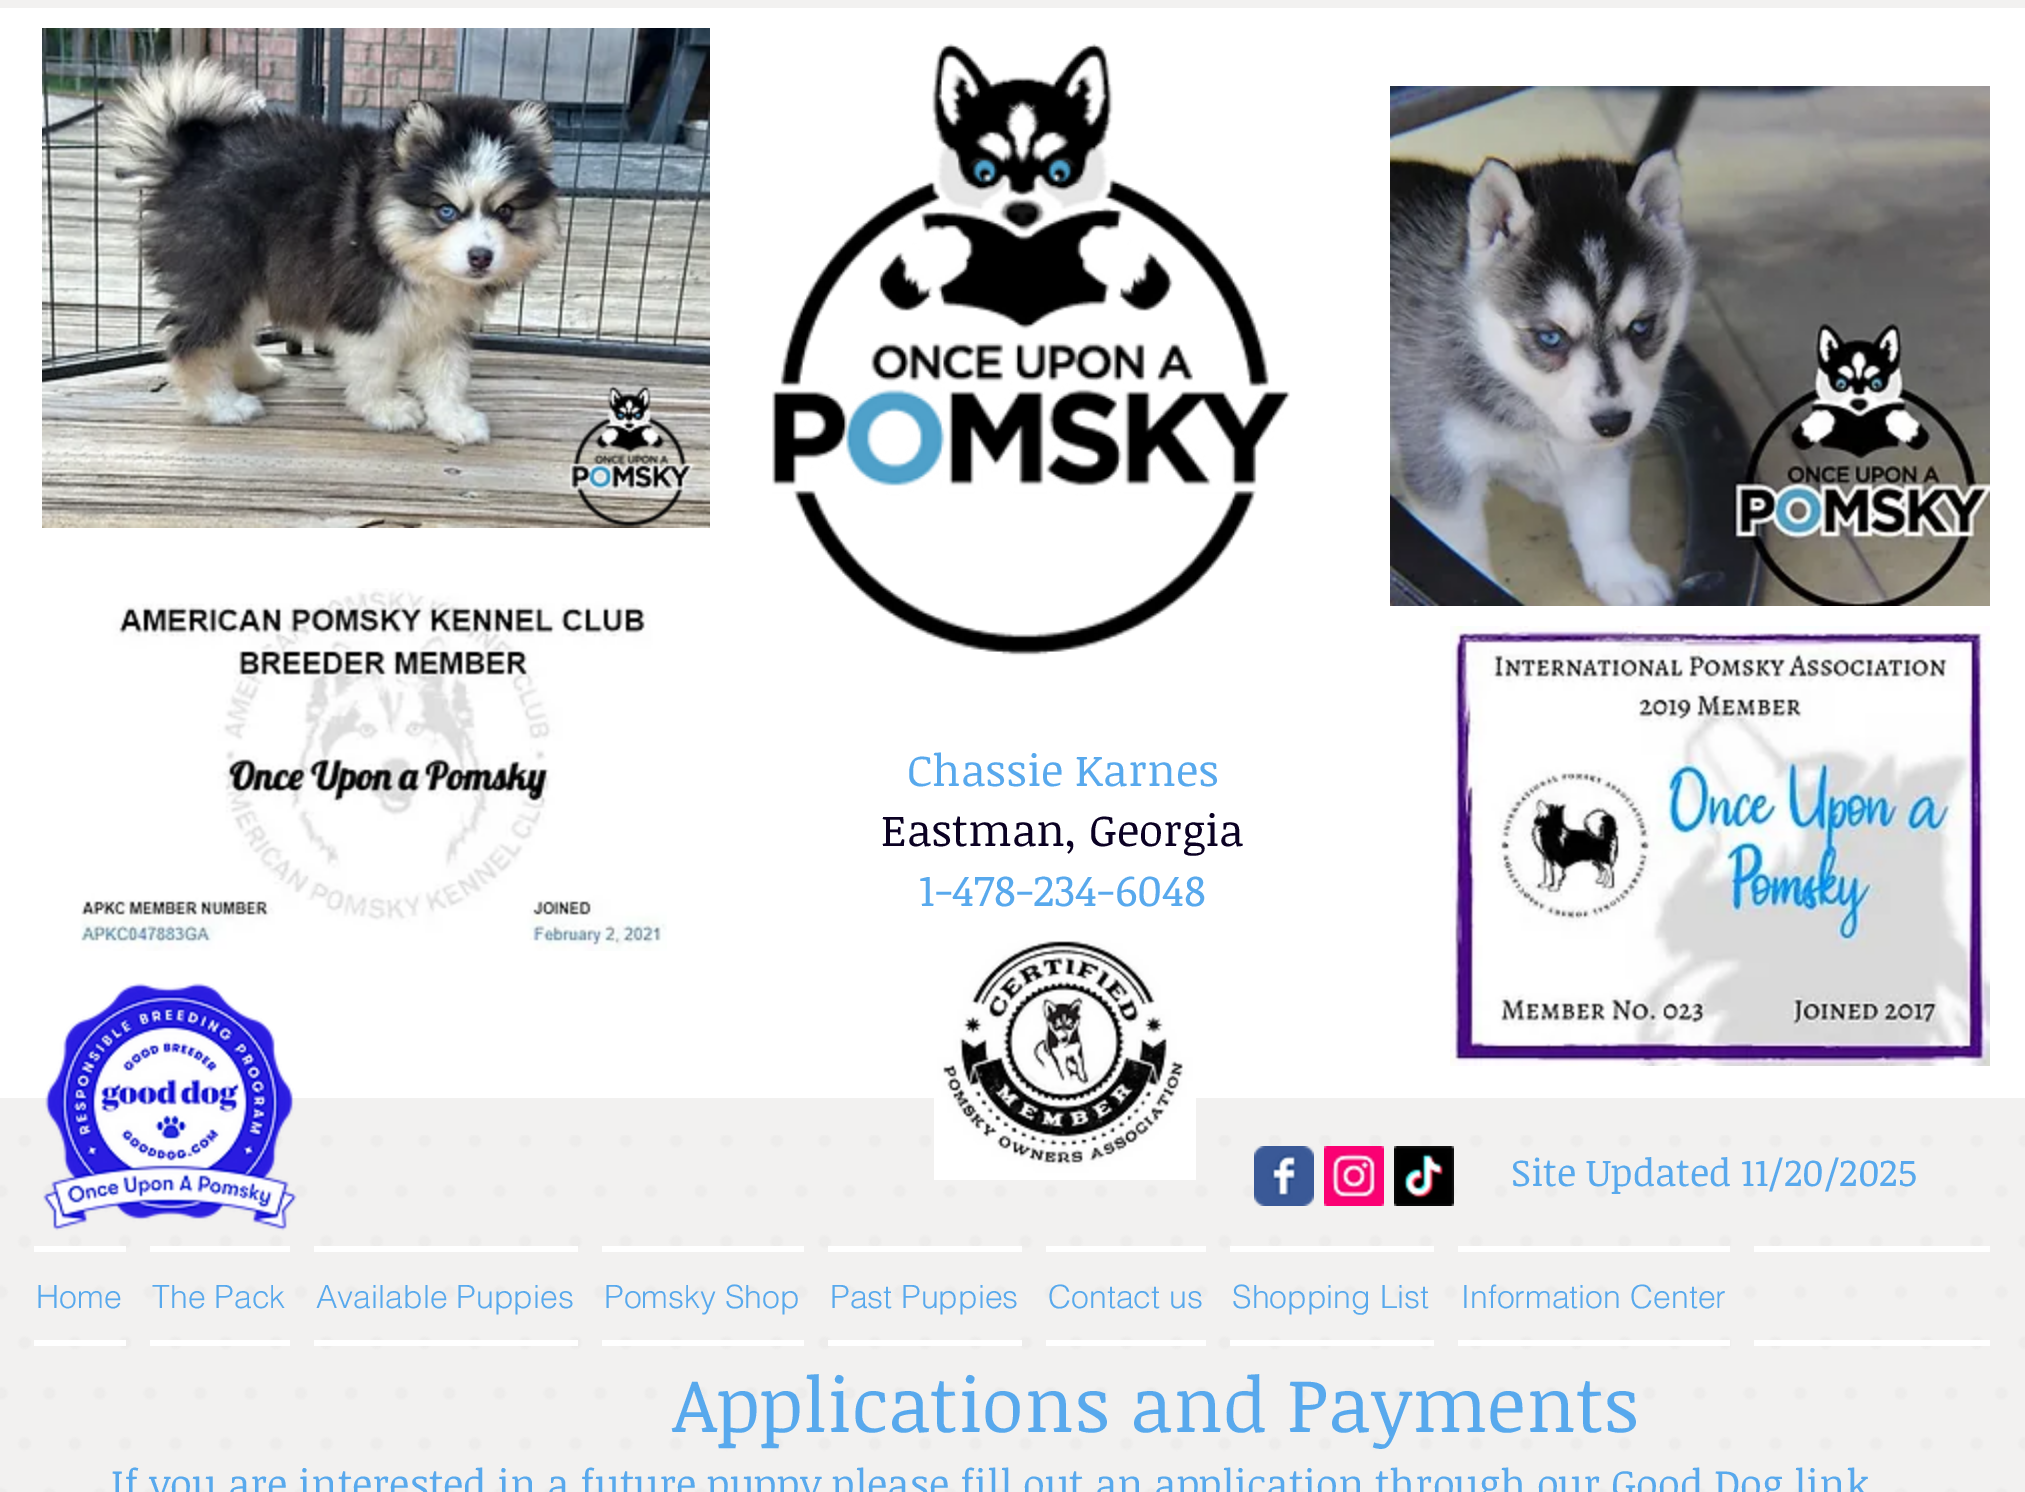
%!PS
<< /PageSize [2025 1492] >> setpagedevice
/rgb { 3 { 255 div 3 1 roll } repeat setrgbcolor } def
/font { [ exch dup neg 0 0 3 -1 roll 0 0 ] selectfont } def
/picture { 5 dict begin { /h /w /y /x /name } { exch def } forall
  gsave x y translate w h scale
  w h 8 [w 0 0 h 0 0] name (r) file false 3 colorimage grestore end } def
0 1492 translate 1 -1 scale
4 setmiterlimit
242 241 240 rgb
0 0 2025 1492 rectfill
255 255 255 rgb
0 8 2025 1090 rectfill
(img/1.rgb) 42 28 668 500 picture
(img/2.rgb) 772 43 518 613 picture
(img/3.rgb) 1390 86 600 520 picture
(img/4.rgb) 569 385 126 142 picture
(img/5.rgb) 80 588 587 363 picture
(img/6.rgb) 1450 626 540 440 picture
(img/12.rgb) 0 1135 2025 357 picture
(img/7.rgb) 43 983 254 248 picture
(img/8.rgb) 934 940 262 240 picture
(img/9.rgb) 1254 1146 60 60 picture
(img/10.rgb) 1324 1146 60 60 picture
(img/11.rgb) 1394 1146 60 60 picture
[
  [34 1246 92 6 255 255 255]
  [34 1340 92 6 255 255 255]
  [150 1246 140 6 255 255 255]
  [150 1340 140 6 255 255 255]
  [314 1246 264 6 255 255 255]
  [314 1340 264 6 255 255 255]
  [602 1246 202 6 255 255 255]
  [602 1340 202 6 255 255 255]
  [828 1246 194 6 255 255 255]
  [828 1340 194 6 255 255 255]
  [1046 1246 160 6 255 255 255]
  [1046 1340 160 6 255 255 255]
  [1230 1246 204 6 255 255 255]
  [1230 1340 204 6 255 255 255]
  [1458 1246 272 6 255 255 255]
  [1458 1340 272 6 255 255 255]
  [1754 1246 236 6 255 255 255]
  [1754 1340 236 6 255 255 255]
] { aload pop rgb rectfill } forall
/NoticiaText-Regular 44 font
88 169 237 rgb
907 786 moveto (Chassie Karnes) show
11 1 35 rgb
881 846 moveto (Eastman, Georgia) show
88 169 237 rgb
919 906 moveto (1-478-234-6048) show
/NoticiaText-Regular 38 font
1511 1186 moveto (Site Updated 11/20/2025) show
/helvetica-Light 32 font
[
  [(Home) 36 1308]
  [(The Pack) 152 1308]
  [(Available Puppies) 316 1308]
  [(Pomsky Shop) 604 1308]
  [(Past Puppies) 830 1308]
  [(Contact us) 1048 1308]
  [(Shopping List) 1232 1308]
  [(Information Center) 1461 1308]
] { aload pop moveto show } forall
/NoticiaText-Regular 76 font
672 1432 moveto (Applications and Payments) show
/NoticiaText-Regular 40 font
111 1498 moveto (If you are interested in a future puppy please fill out an application through our Good Dog link) show
showpage
